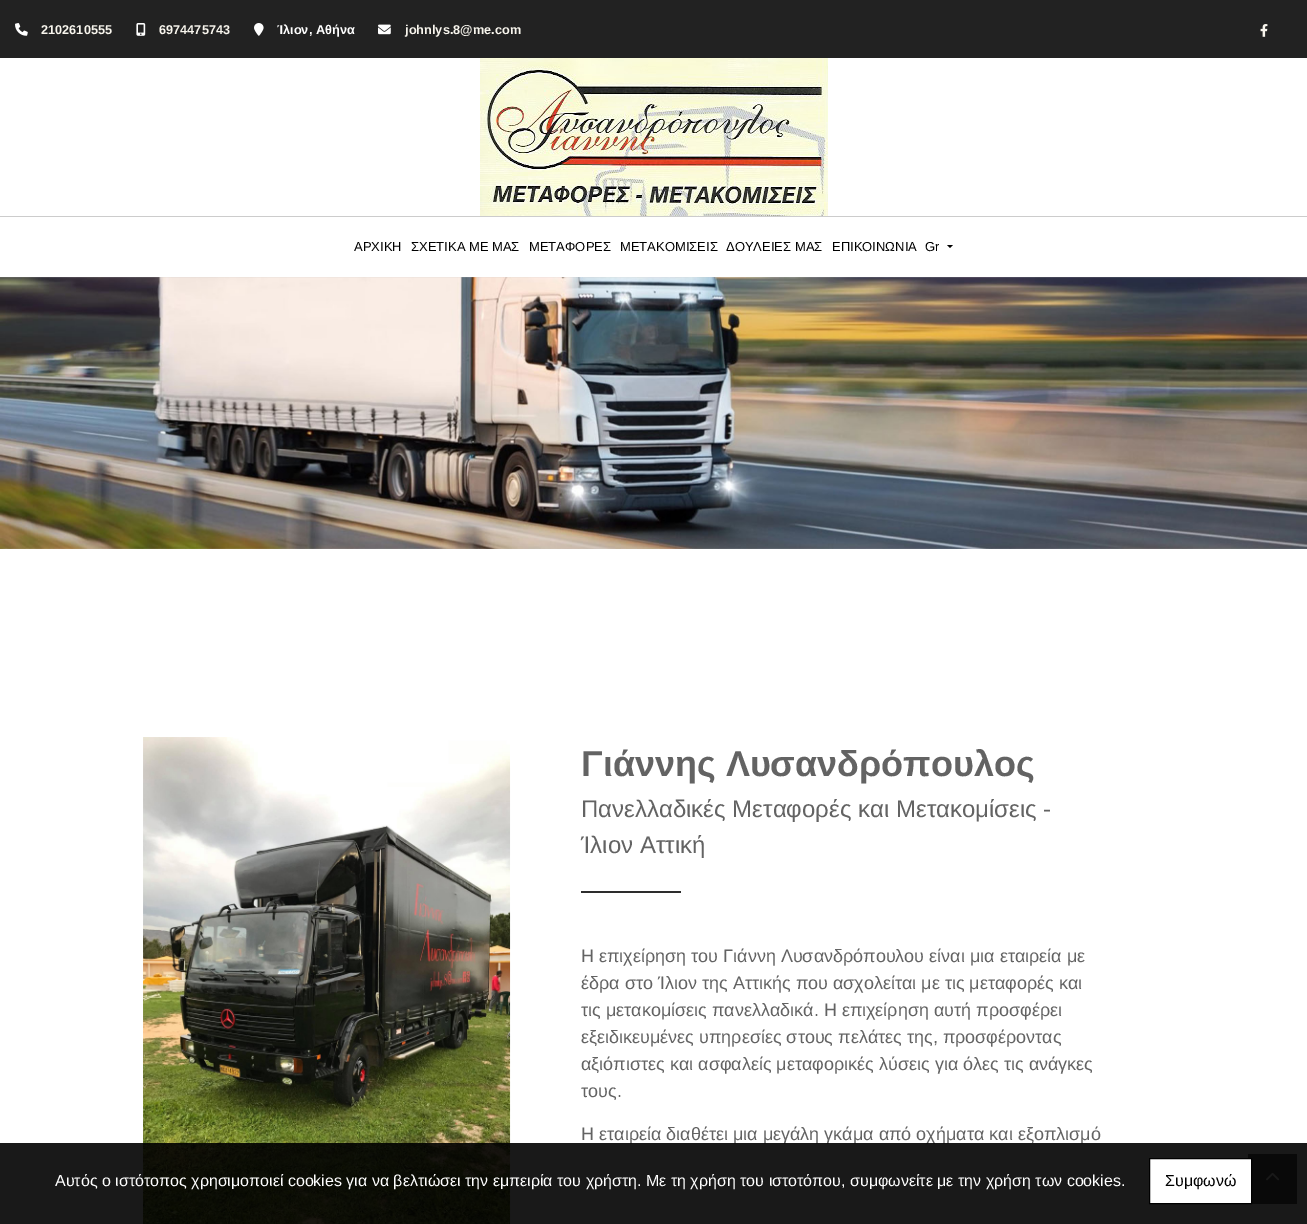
%!PS
<< /PageSize [1307 1224] /PageUsesTransparency true >> setpagedevice
/rgb { 3 { 255 div 3 1 roll } repeat setrgbcolor } def
/font { [ exch dup neg 0 0 3 -1 roll 0 0 ] selectfont } def
/alpha { dup .setfillconstantalpha .setstrokeconstantalpha } def
/picture { 5 dict begin { /h /w /y /x /name } { exch def } forall
  gsave x y translate w h scale
  w h 8 [w 0 0 h 0 0] name (r) file false 3 colorimage grestore end } def
0 .pushpdf14devicefilter
0 1224 translate 1 -1 scale
4 setmiterlimit
255 255 255 rgb
0 0 1307 1224 rectfill
34 34 34 rgb
0 0 1307 58 rectfill
(img/1.rgb) 15 23 13 13 picture
(img/2.rgb) 136 23 10 13 picture
(img/3.rgb) 254 23 10 13 picture
(img/4.rgb) 378 24 13 11 picture
(img/5.rgb) 1260 24 8 13 picture
204 204 204 rgb
0 216 1307 1 rectfill
(img/6.rgb) 480 58 348 158 picture
0 0 0 rgb
947 245 moveto 953 245 lineto 950 248 lineto closepath fill
(img/7.rgb) 0 277 1307 272 picture
(img/8.rgb) 143 737 368 487 picture
45 45 45 rgb
581 891 100 2 rectfill
94 94 94 rgb
1248 1154 49 50 rectfill
(img/9.rgb) 1266 1172 14 9 picture
/Arimo-Bold 12.75 font
248 245 237 rgb
41 34 moveto (2102610555) show
159 34 moveto (6974475743) show
255 255 255 rgb
277 34 moveto (Ίλιον, Αθήνα) show
248 245 237 rgb
405 34 moveto (johnlys.8@me.com) show
/Arimo-Regular 13 font
0 0 0 rgb
[
  [(ΑΡΧΙΚΗ) 354 251]
  [(ΣΧΕΤΙΚΑ ΜΕ ΜΑΣ) 411 251]
  [(ΜΕΤΑΦΟΡΕΣ) 529 251]
  [(ΜΕΤΑΚΟΜΙΣΕΙΣ) 620 251]
  [(ΔΟΥΛΕΙΕΣ ΜΑΣ) 726 251]
  [(ΕΠΙΚΟΙΝΩΝΙΑ) 832 251]
  [(Gr) 925 251]
] { aload pop moveto show } forall
/Arimo-Bold 36 font
99 99 99 rgb
581 776 moveto (Γιάννης Λυσανδρόπουλος) show
/Arimo-Regular 24 font
581 817 moveto (Πανελλαδικές Μεταφορές και Μετακομίσεις -) show
581 853 moveto (Ίλιον Αττική) show
/Arimo-Regular 18 font
[
  [(Η επιχείρηση του Γιάννη Λυσανδρόπουλου είναι μια εταιρεία με) 581 962]
  [(έδρα στο Ίλιον της Αττικής που ασχολείται με τις μεταφορές και) 581 989]
  [(τις μετακομίσεις πανελλαδικά. Η επιχείρηση αυτή προσφέρει) 581 1016]
  [(εξειδικευμένες υπηρεσίες στους πελάτες της, προσφέροντας) 581 1043]
  [(αξιόπιστες και ασφαλείς μεταφορικές λύσεις για όλες τις ανάγκες) 581 1070]
  [(τους.) 581 1097]
  [(Η εταιρεία διαθέτει μια μεγάλη γκάμα από οχήματα και εξοπλισμό) 581 1140]
] { aload pop moveto show } forall
0.9 alpha
0 0 0 rgb
0 1143 1307 81 rectfill
/Arimo-Regular 16 font
1 alpha
255 255 255 rgb
55 1186 moveto (Αυτός ο ιστότοπος χρησιμοποιεί cookies για να βελτιώσει την εμπειρία του χρήστη. Με τη χρήση του ιστοτόπου, συμφωνείτε με την χρήση των cookies.) show
1149.5 1158.5 moveto 1251.5 1158.5 lineto 1251.5 1203.5 lineto 1149.5 1203.5 lineto closepath gsave fill grestore
0 0 0 rgb
stroke
1165 1186 moveto (Συμφωνώ) show
.poppdf14devicefilter showpage
